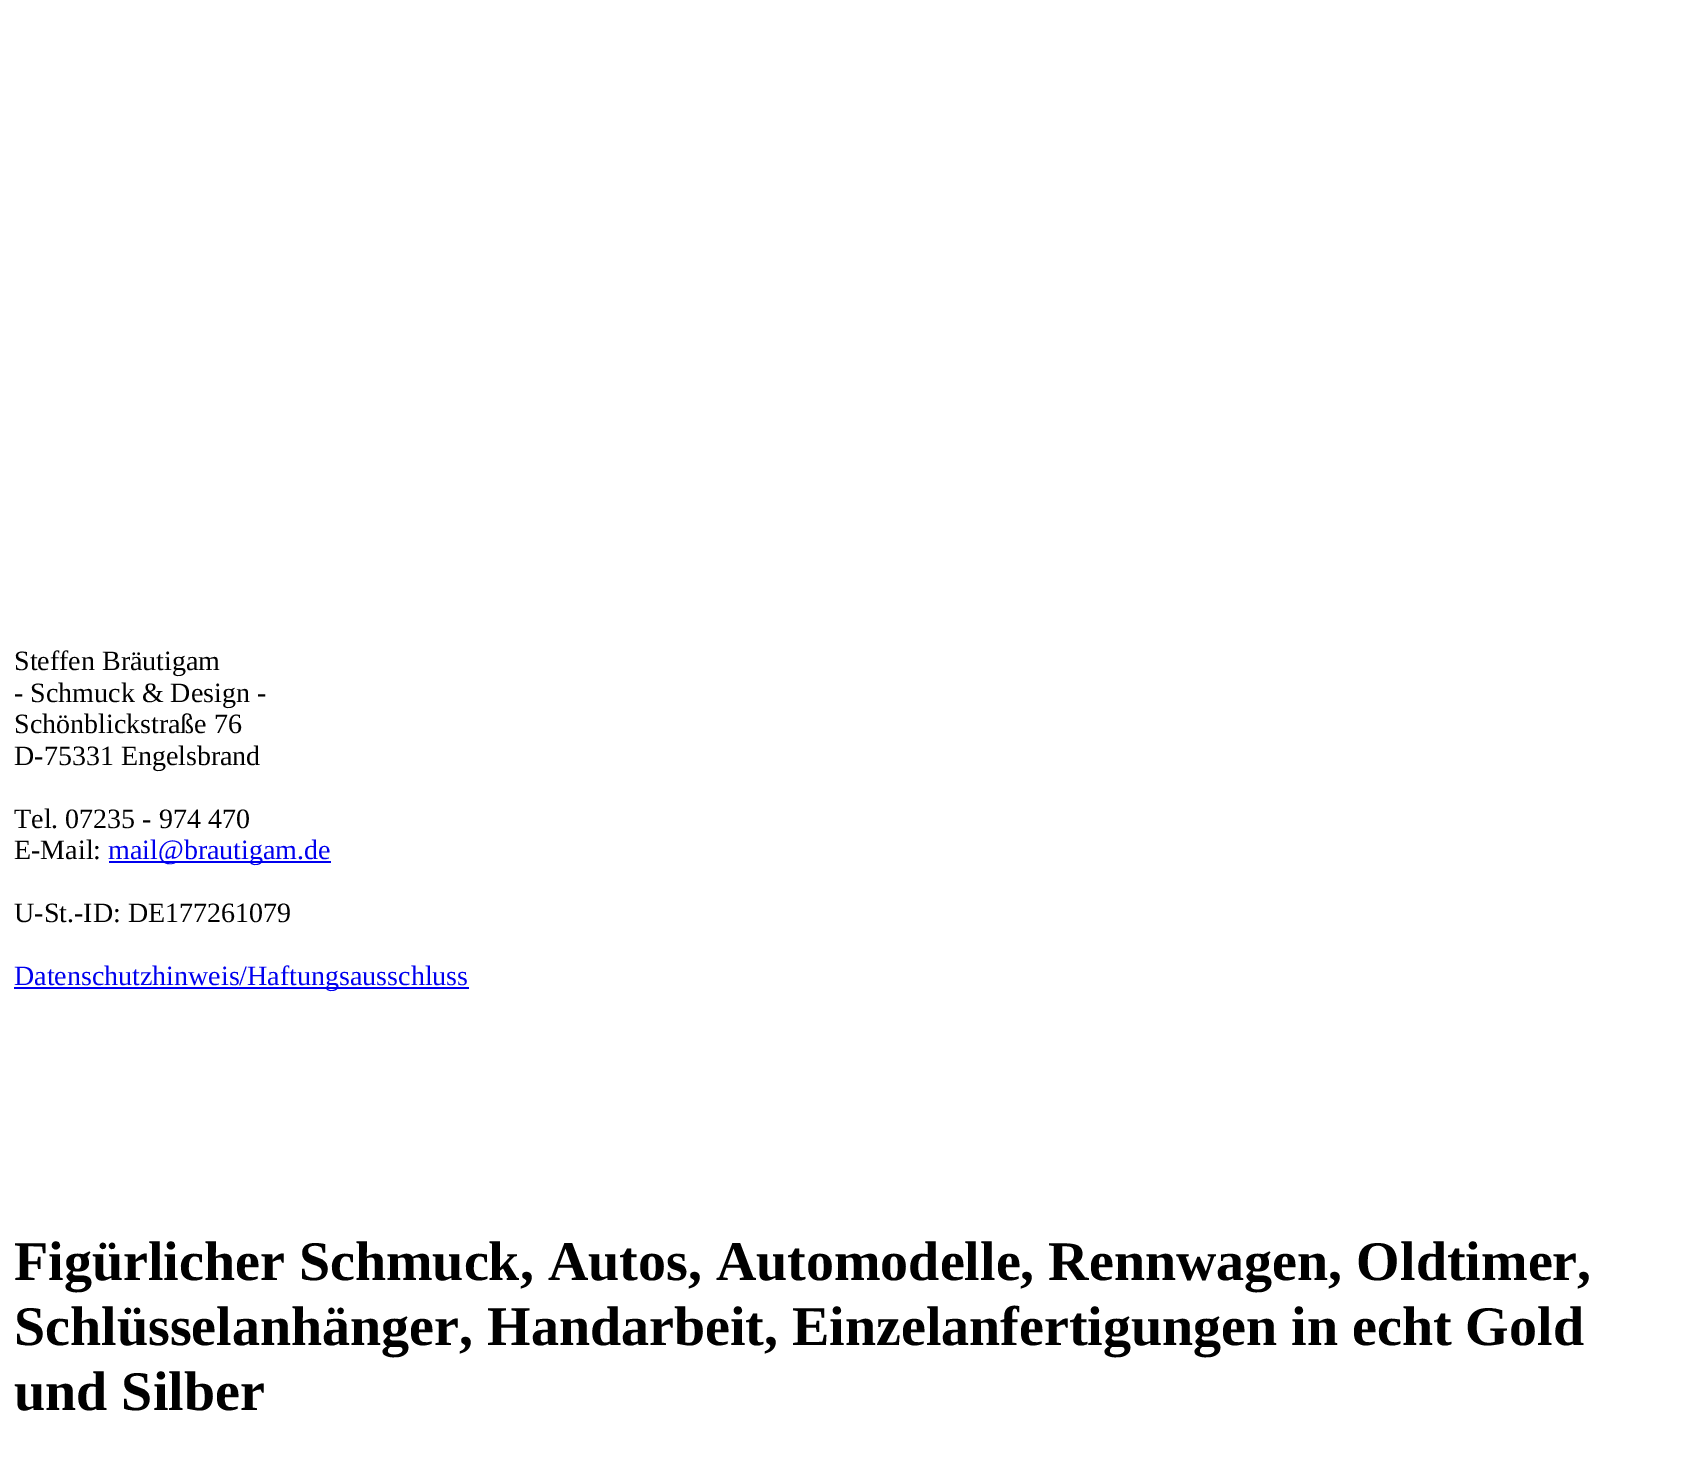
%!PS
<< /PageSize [1688 1460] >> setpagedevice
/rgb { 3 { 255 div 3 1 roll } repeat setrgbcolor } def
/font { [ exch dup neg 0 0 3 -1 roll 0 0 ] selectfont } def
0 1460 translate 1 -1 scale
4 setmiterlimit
255 255 255 rgb
0 0 1688 1460 rectfill
0 0 238 rgb
109 861 222 2 rectfill
14 987 455 2 rectfill
/LiberationSerif-Regular 28 font
0 0 0 rgb
[
  [(Steffen Bräutigam) 14 670]
  [(- Schmuck & Design -) 14 702]
  [(Schönblickstraße 76) 14 733]
  [(D-75331 Engelsbrand) 14 765]
  [(Tel. 07235 - 974 470) 14 828]
  [(E-Mail:) 14 859]
] { aload pop moveto show } forall
0 0 238 rgb
108 859 moveto (mail@brautigam.de) show
0 0 0 rgb
14 922 moveto (U-St.-ID: DE177261079) show
0 0 238 rgb
14 985 moveto (Datenschutzhinweis/Haftungsausschluss) show
/LiberationSerif-Bold 56 font
0 0 0 rgb
[
  [(Figürlicher Schmuck, Autos, Automodelle, Rennwagen, Oldtimer,) 14 1280]
  [(Schlüsselanhänger, Handarbeit, Einzelanfertigungen in echt Gold) 14 1345]
  [(und Silber) 14 1410]
] { aload pop moveto show } forall
showpage
